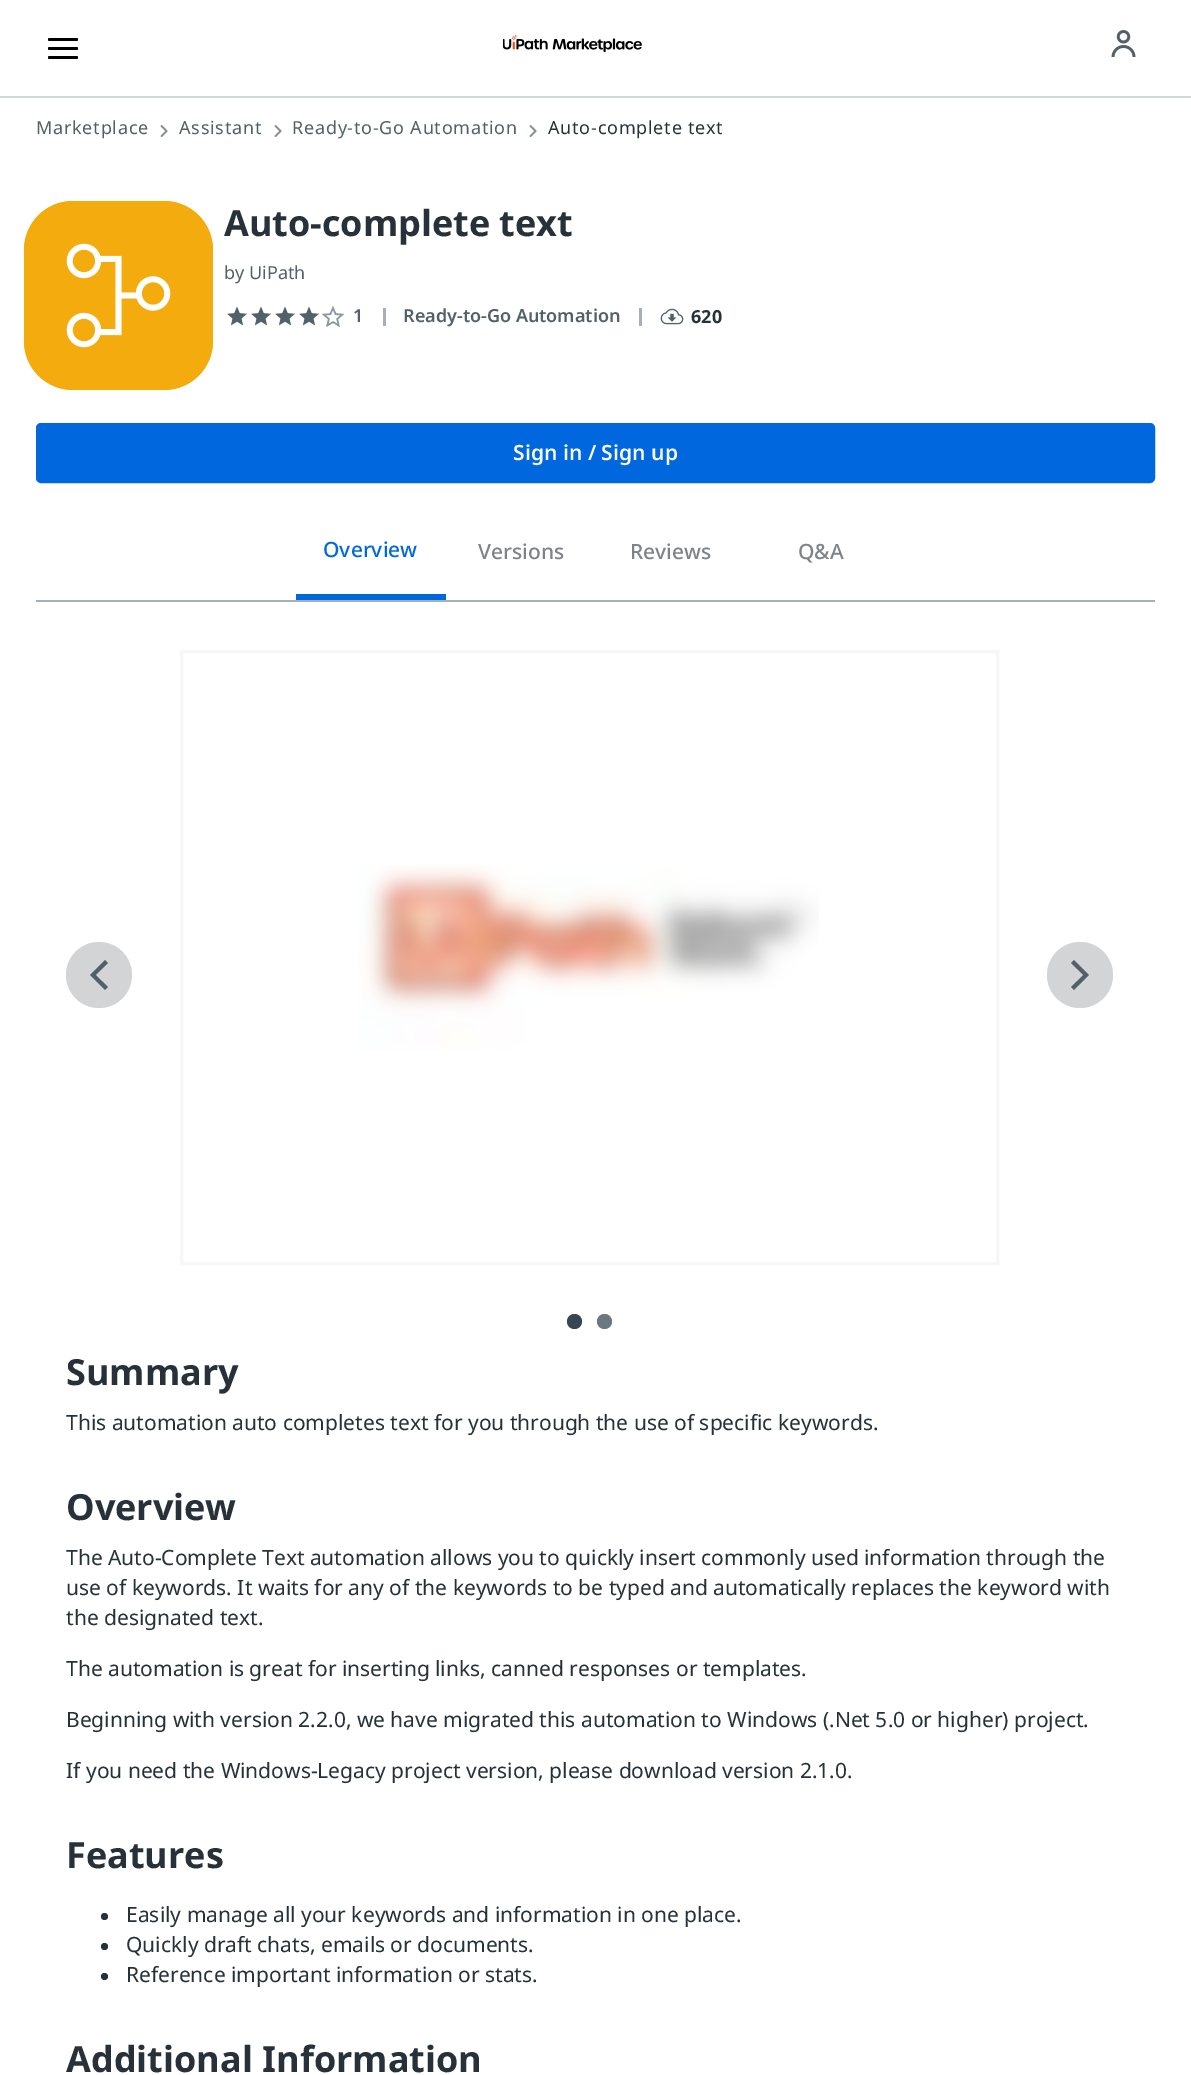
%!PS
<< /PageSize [1191 2075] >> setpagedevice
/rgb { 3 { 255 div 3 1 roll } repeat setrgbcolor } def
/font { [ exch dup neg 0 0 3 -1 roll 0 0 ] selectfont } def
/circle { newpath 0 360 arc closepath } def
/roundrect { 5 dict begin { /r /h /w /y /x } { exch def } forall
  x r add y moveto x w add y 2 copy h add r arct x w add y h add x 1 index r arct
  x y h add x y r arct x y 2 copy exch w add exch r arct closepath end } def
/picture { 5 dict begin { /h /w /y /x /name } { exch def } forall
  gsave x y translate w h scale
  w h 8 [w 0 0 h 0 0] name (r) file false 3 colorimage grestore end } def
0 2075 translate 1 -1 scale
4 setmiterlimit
255 255 255 rgb
0 0 1191 2075 rectfill
207 216 221 rgb
0 96 1191 2 rectfill
0 0 0 rgb
48 38 30 3 1.5 roundrect fill
48 47 30 3 1.5 roundrect fill
48 56 30 3 1.5 roundrect fill
(img/1.rgb) 503 34 139 19 picture
(img/2.rgb) 1111 30 25 27 picture
(img/3.rgb) 160 125 8 12 picture
(img/3.rgb) 274 125 8 12 picture
(img/3.rgb) 529 125 8 12 picture
(img/4.rgb) 24 201 189 189 picture
(img/5.rgb) 227 306 20 20 picture
(img/5.rgb) 251 306 20 20 picture
(img/5.rgb) 275 306 20 20 picture
(img/5.rgb) 299 306 20 20 picture
(img/6.rgb) 321 306 24 22 picture
164 177 184 rgb
383 308 3 18 rectfill
639 308 3 18 rectfill
(img/7.rgb) 660 308 24 17 picture
0 103 223 rgb
37 424 1117 58 4 roundrect gsave fill grestore
2 setlinewidth
stroke
296 594 150 6 rectfill
164 177 184 rgb
36 600 1119 2 rectfill
211 212 214 rgb
99 975 33 circle fill
82 96 105 rgb
108 963 moveto 105 960 lineto 90 975 lineto 105 990 lineto 108 987 lineto 95.5 975 lineto closepath fill
247 247 247 rgb
3 setlinewidth
181.5 651.5 816 612 rectstroke
(img/8.rgb) 358 865 461 185 picture
55 70 82 rgb
574.5 1321.5 7.5 circle fill
107 120 130 rgb
604.5 1321.5 7.5 circle fill
211 212 214 rgb
1080 975 33 circle fill
82 96 105 rgb
1071 963 moveto 1074 960 lineto 1089 975 lineto 1074 990 lineto 1071 987 lineto 1083.5 975 lineto closepath fill
39 49 57 rgb
104.5 1916.5 3.5 circle fill
104.5 1946.5 3.5 circle fill
104.5 1976.5 3.5 circle fill
/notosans-Regular 18 font
82 96 105 rgb
36 134 moveto 0.75 0 (Marketplace) ashow
179 134 moveto 0.75 0 (Assistant) ashow
292 134 moveto 0.75 0 (Ready-to-Go Automation) ashow
39 49 57 rgb
548 134 moveto 0.75 0 (Auto-complete text) ashow
/NotoSans-Bold 36 font
224 236 moveto (Auto-complete text) show
/notosans-Regular 18 font
82 96 105 rgb
224 279 moveto (by UiPath) show
/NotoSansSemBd-SemiBold 18 font
353 322 moveto (1) show
403 322 moveto (Ready-to-Go Automation) show
/NotoSans-Bold 18 font
39 49 57 rgb
691 323 moveto (620) show
/NotoSansSemBd-SemiBold 21 font
248 249 250 rgb
513 460 moveto (Sign in / Sign up) show
/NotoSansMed-Medium 21 font
0 103 223 rgb
323 557 moveto (Overview) show
125 131 136 rgb
[
  [(Versions) 478 559]
  [(Reviews) 630 559]
  [(Q&A) 798 559]
] { aload pop moveto show } forall
/NotoSans-Bold 36 font
39 49 57 rgb
66 1385 moveto (Summary) show
/notosans-Regular 21 font
66 1430 moveto (This automation auto completes text for you through the use of specific keywords.) show
/NotoSans-Bold 36 font
66 1520 moveto (Overview) show
/notosans-Regular 21 font
[
  [(The Auto-Complete Text automation allows you to quickly insert commonly used information through the) 66 1565]
  [(use of keywords. It waits for any of the keywords to be typed and automatically replaces the keyword with) 66 1595]
  [(the designated text.) 66 1625]
  [(The automation is great for inserting links, canned responses or templates.) 66 1676]
  [(Beginning with version 2.2.0, we have migrated this automation to Windows \(.Net 5.0 or higher\) project.) 66 1727]
  [(If you need the Windows-Legacy project version, please download version 2.1.0.) 66 1778]
] { aload pop moveto show } forall
/NotoSans-Bold 36 font
66 1868 moveto (Features) show
/notosans-Regular 21 font
[
  [(Easily manage all your keywords and information in one place.) 126 1922]
  [(Quickly draft chats, emails or documents.) 126 1952]
  [(Reference important information or stats.) 126 1982]
] { aload pop moveto show } forall
/NotoSans-Bold 36 font
66 2072 moveto (Additional Information) show
showpage
